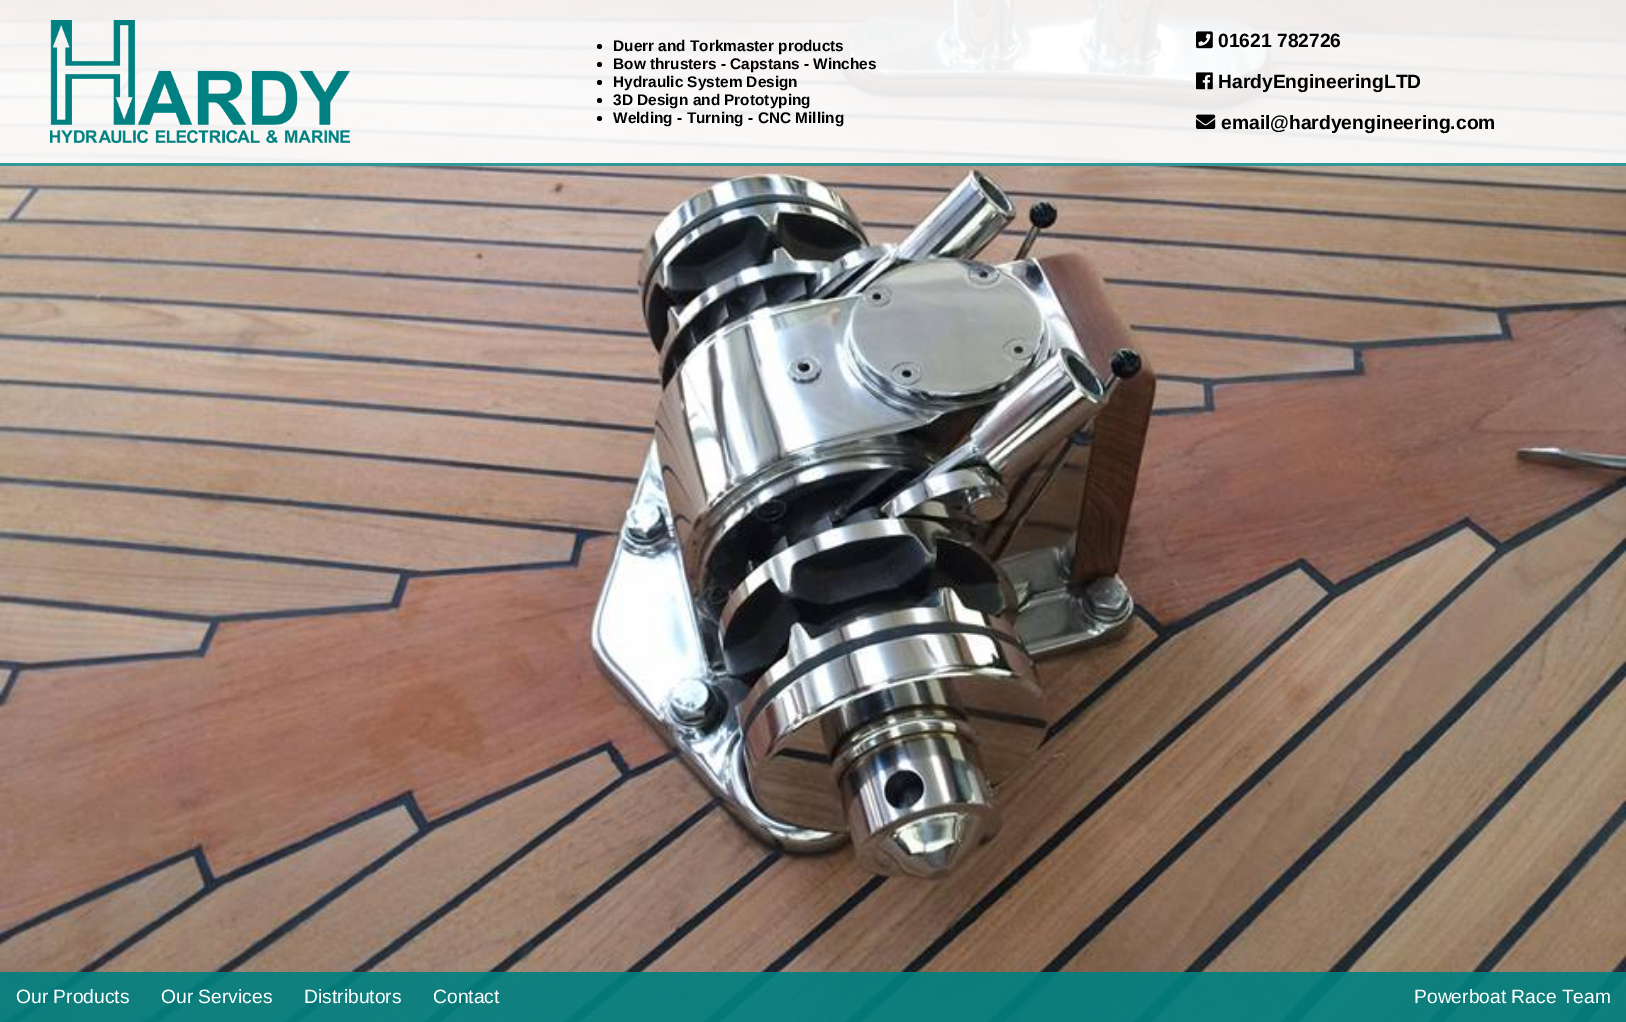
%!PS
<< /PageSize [1626 1022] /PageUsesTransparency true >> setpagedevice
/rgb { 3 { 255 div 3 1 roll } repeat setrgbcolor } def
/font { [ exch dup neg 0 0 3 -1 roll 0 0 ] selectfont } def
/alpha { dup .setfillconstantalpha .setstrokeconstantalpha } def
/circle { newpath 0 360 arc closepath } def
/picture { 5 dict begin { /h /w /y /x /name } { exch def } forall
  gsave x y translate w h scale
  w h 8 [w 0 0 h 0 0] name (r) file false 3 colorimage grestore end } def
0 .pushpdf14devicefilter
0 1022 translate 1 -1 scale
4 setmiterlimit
255 255 255 rgb
0 0 1626 1022 rectfill
(img/1.rgb) 0 0 1626 1022 picture
0.9 alpha
0 0 1626 166 rectfill
0.8 alpha
0 128 128 rgb
0 163 1626 3 rectfill
1 alpha
(img/2.rgb) 50 20 300 123 picture
0 0 0 rgb
599.5 46.5 2.5 circle fill
599.5 64.5 2.5 circle fill
599.5 82.5 2.5 circle fill
599.5 100.5 2.5 circle fill
599.5 118.5 2.5 circle fill
(img/3.rgb) 1196 31 17 18 picture
(img/4.rgb) 1196 72 17 18 picture
(img/5.rgb) 1196 114 20 15 picture
0.9 alpha
0 128 128 rgb
0 972 1626 50 rectfill
/LiberationSans-Bold 15.4 font
1 alpha
0 0 0 rgb
[
  [(Duerr and Torkmaster products) 613 51]
  [(Bow thrusters - Capstans - Winches) 613 69]
  [(Hydraulic System Design) 613 87]
  [(3D Design and Prototyping) 613 105]
  [(Welding - Turning - CNC Milling) 613 123]
] { aload pop moveto show } forall
/LiberationSans-Bold 19.25 font
[
  [(01621 782726) 1218 47]
  [(HardyEngineeringLTD) 1218 88]
  [(email@hardyengineering.com) 1221 129]
] { aload pop moveto show } forall
/LiberationSans-Regular 19.25 font
255 255 255 rgb
[
  [(Our Products) 16 1003]
  [(Our Services) 161 1003]
  [(Distributors) 304 1003]
  [(Contact) 433 1003]
  [(Powerboat Race Team) 1414 1003]
] { aload pop moveto show } forall
.poppdf14devicefilter showpage
